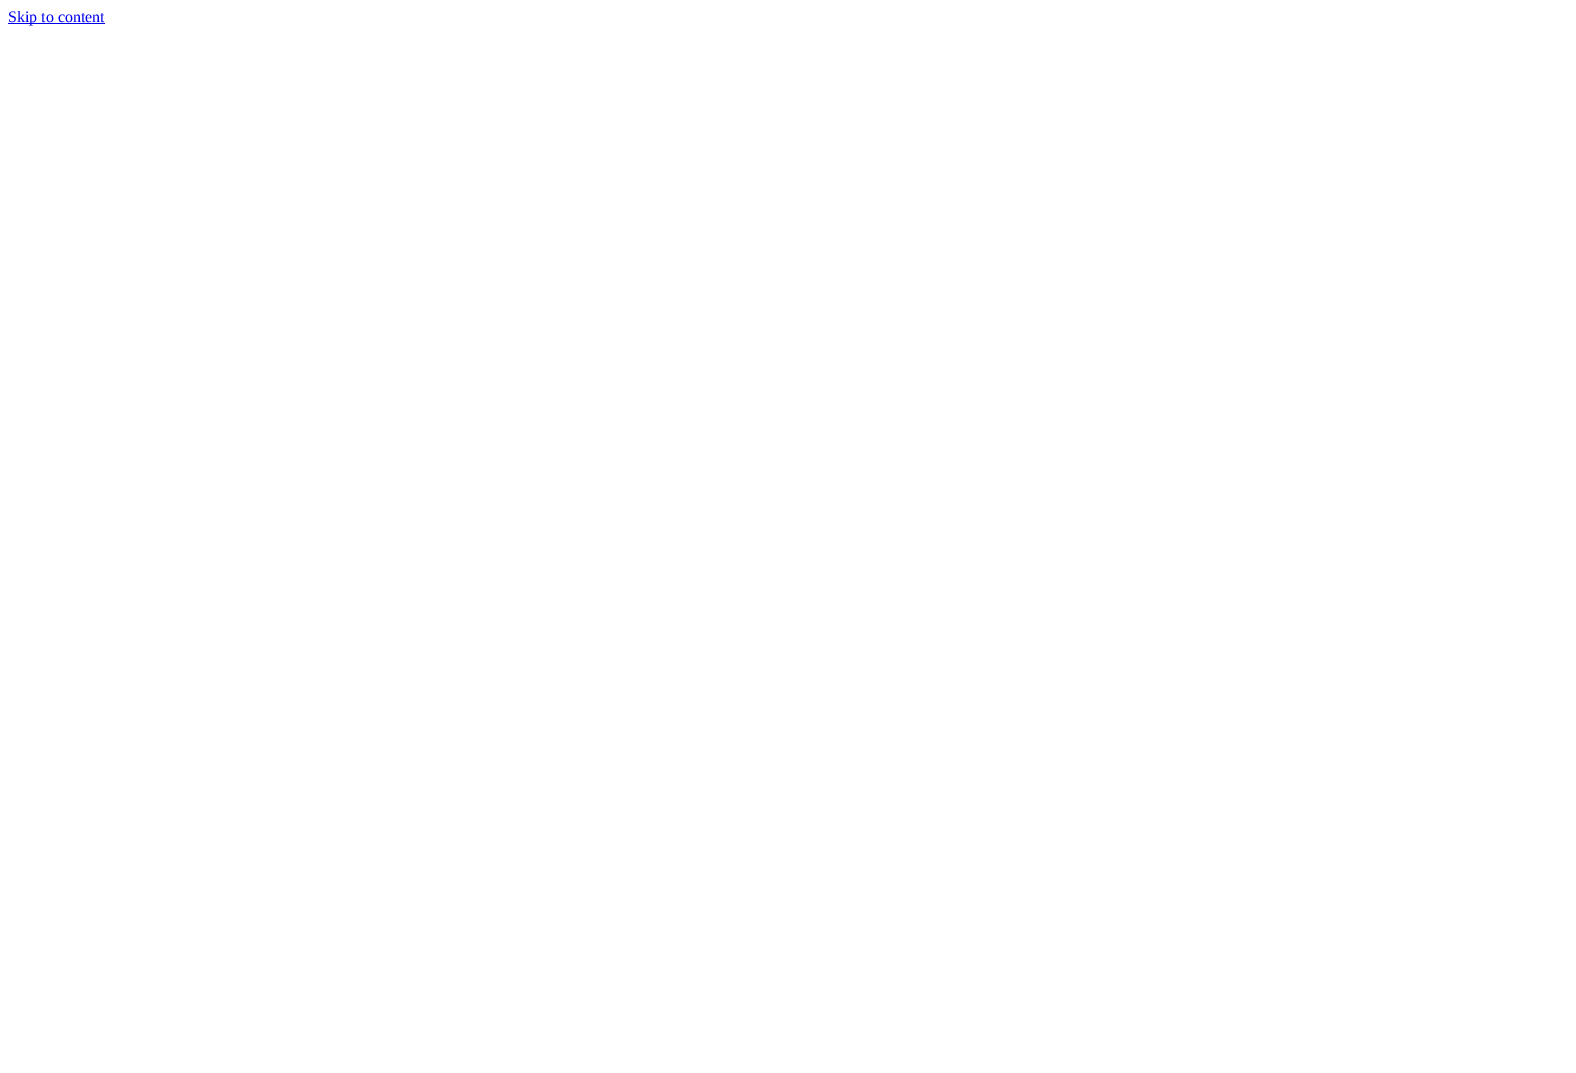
%!PS
<< /PageSize [1576 1073] >> setpagedevice
/rgb { 3 { 255 div 3 1 roll } repeat setrgbcolor } def
/font { [ exch dup neg 0 0 3 -1 roll 0 0 ] selectfont } def
0 1073 translate 1 -1 scale
4 setmiterlimit
255 255 255 rgb
0 0 1576 1073 rectfill
0 0 238 rgb
8 23 97 1 rectfill
/LiberationSerif-Regular 16 font
8 22 moveto (Skip to content) show
showpage
